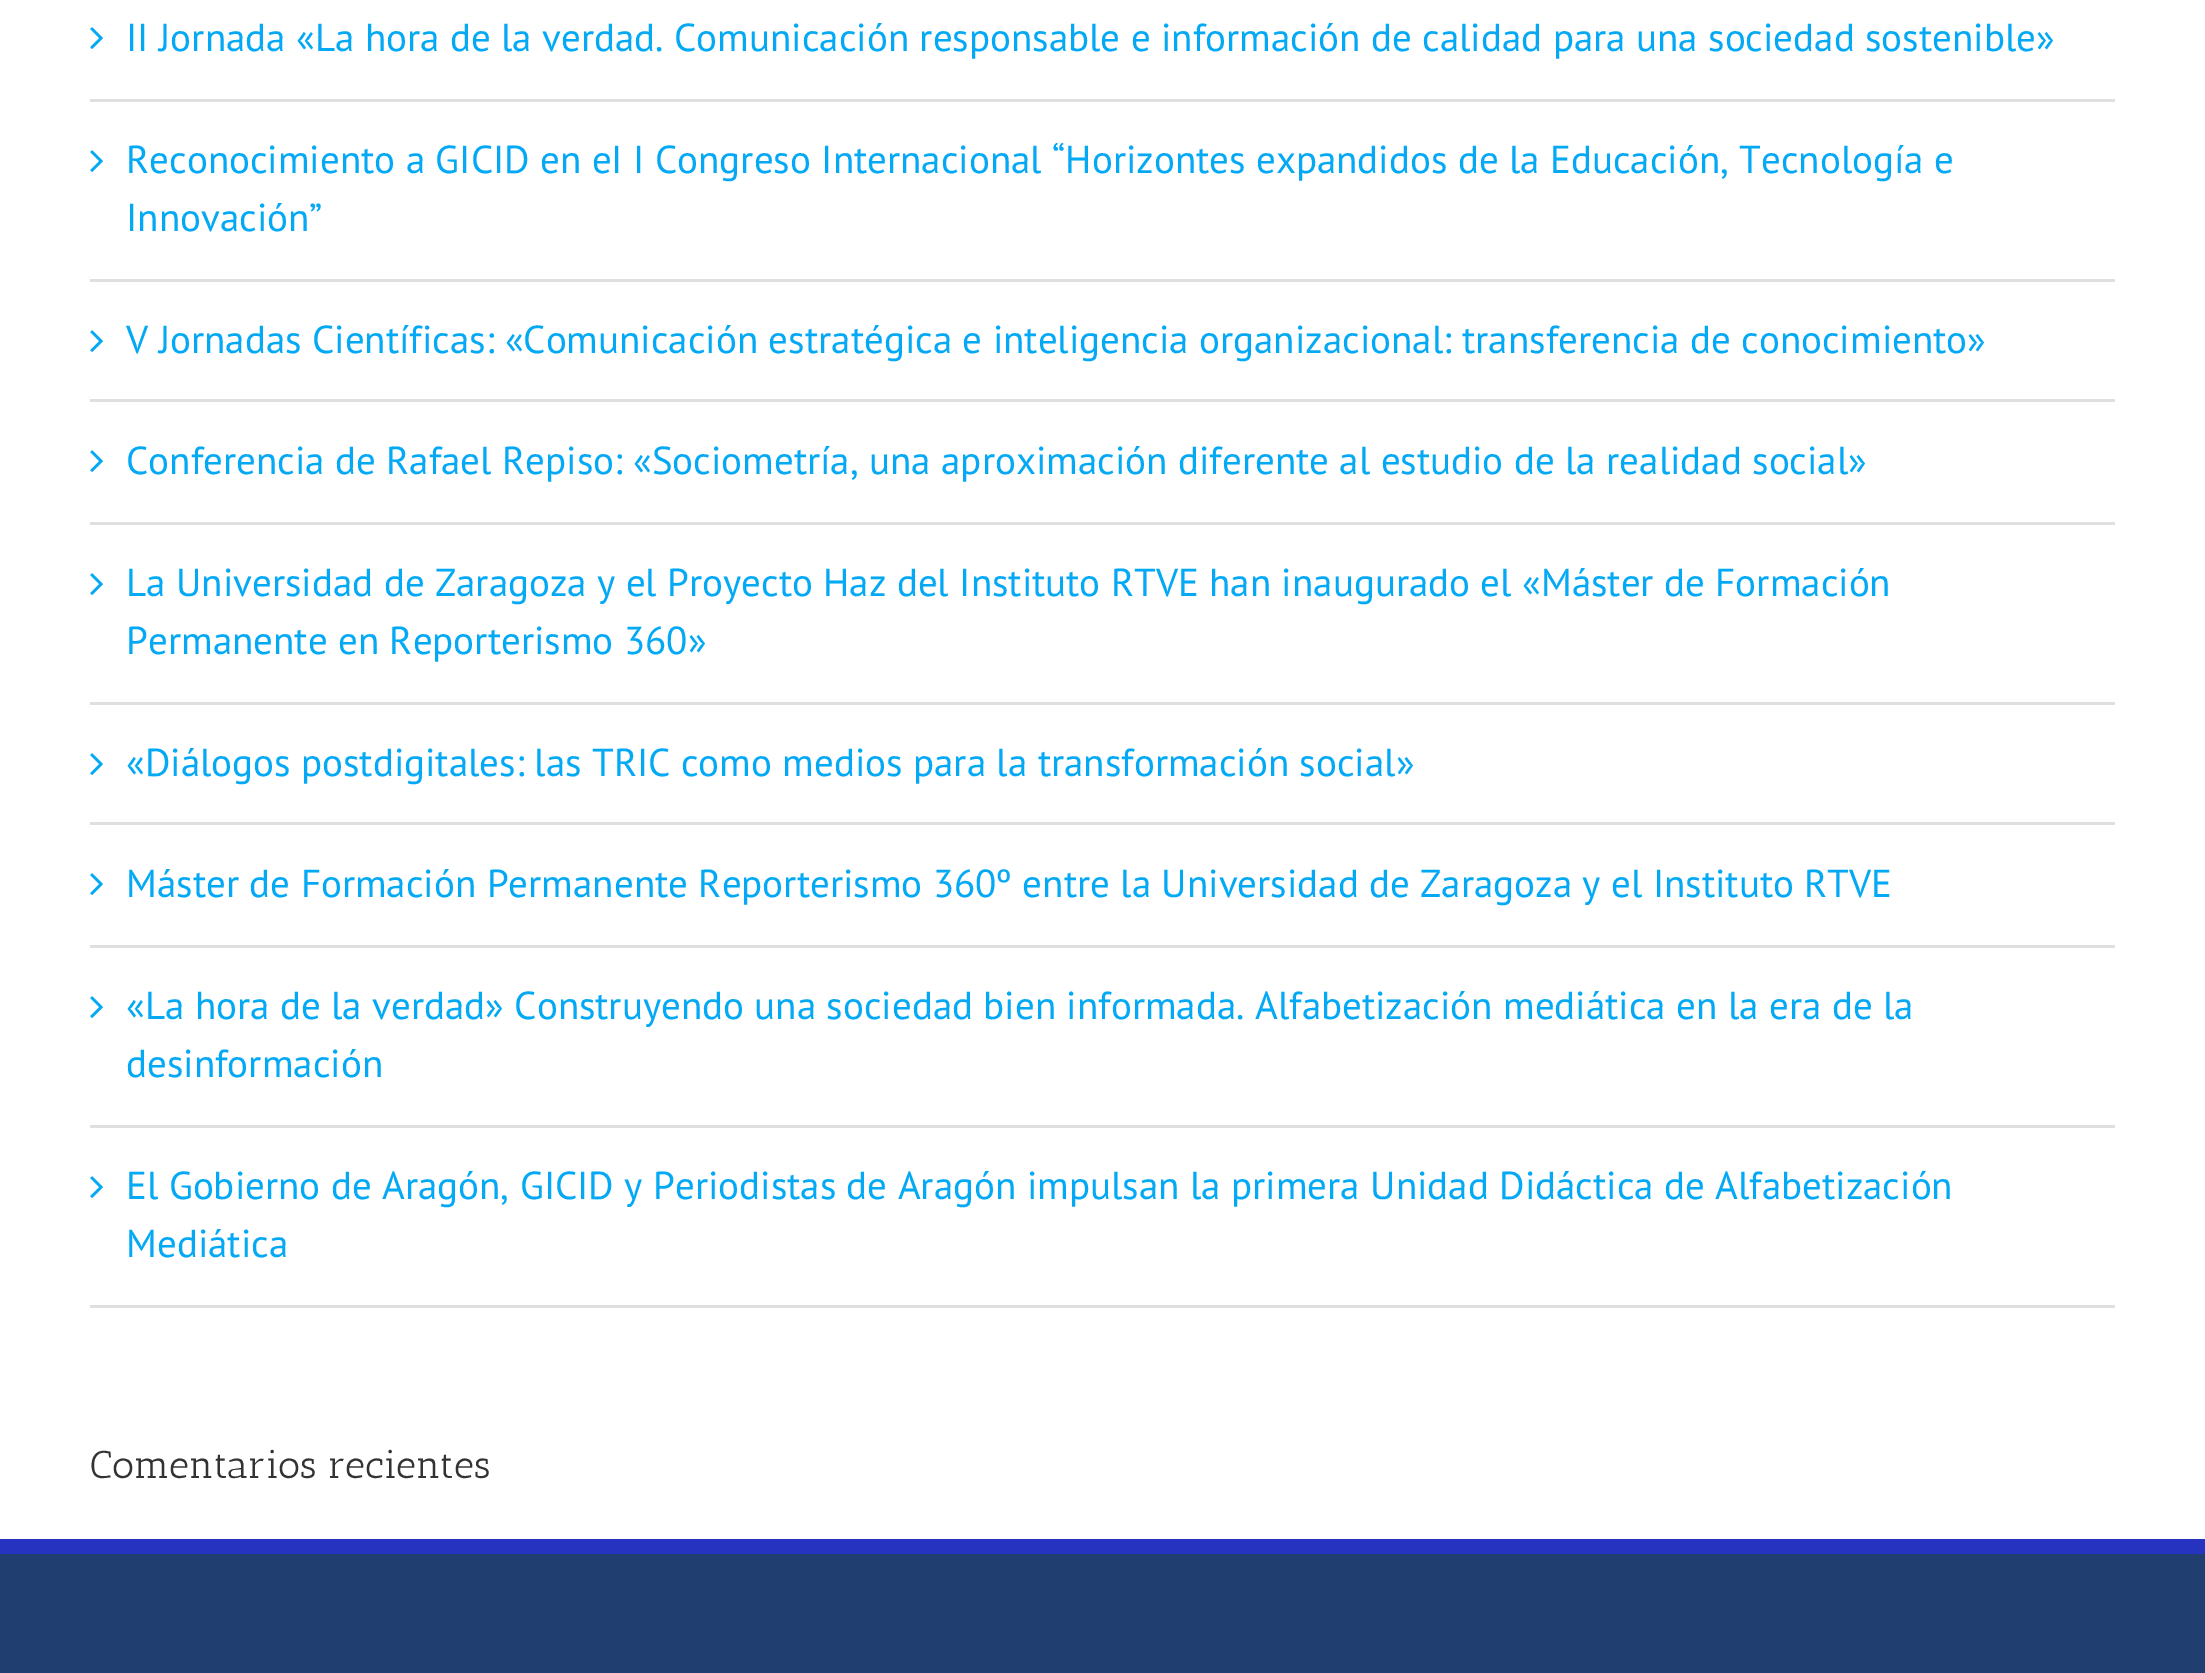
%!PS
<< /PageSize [2205 1673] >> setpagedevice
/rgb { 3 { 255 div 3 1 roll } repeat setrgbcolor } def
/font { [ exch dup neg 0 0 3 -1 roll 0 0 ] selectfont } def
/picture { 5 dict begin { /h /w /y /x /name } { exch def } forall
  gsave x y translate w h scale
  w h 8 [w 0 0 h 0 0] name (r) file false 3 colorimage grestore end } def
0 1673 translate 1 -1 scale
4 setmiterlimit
255 255 255 rgb
0 0 2205 1673 rectfill
224 222 222 rgb
90 99 2025 3 rectfill
(img/1.rgb) 90 27 13 22 picture
90 279 2025 3 rectfill
(img/1.rgb) 90 150 13 22 picture
90 399 2025 3 rectfill
(img/1.rgb) 90 330 13 22 picture
90 522 2025 3 rectfill
(img/1.rgb) 90 450 13 22 picture
90 702 2025 3 rectfill
(img/1.rgb) 90 573 13 22 picture
90 822 2025 3 rectfill
(img/1.rgb) 90 753 13 22 picture
90 945 2025 3 rectfill
(img/1.rgb) 90 873 13 22 picture
90 1125 2025 3 rectfill
(img/1.rgb) 90 996 13 22 picture
90 1305 2025 3 rectfill
(img/1.rgb) 90 1176 13 22 picture
33 62 113 rgb
0 1554 2205 119 rectfill
38 51 193 rgb
0 1539 2205 15 rectfill
/PTSans-Regular 39 font
3 169 244 rgb
[
  [(II Jornada «La hora de la verdad. Comunicación responsable e información de calidad para una sociedad sostenible») 126 51]
  [(Reconocimiento a GICID en eI I Congreso Internacional “Horizontes expandidos de la Educación, Tecnología e) 126 173]
  [(Innovación”) 126 231]
  [(V Jornadas Científicas: «Comunicación estratégica e inteligencia organizacional: transferencia de conocimiento») 126 353]
  [(Conferencia de Rafael Repiso: «Sociometría, una aproximación diferente al estudio de la realidad social») 126 474]
  [(La Universidad de Zaragoza y el Proyecto Haz del Instituto RTVE han inaugurado el «Máster de Formación) 126 596]
  [(Permanente en Reporterismo 360») 126 654]
  [(«Diálogos postdigitales: las TRIC como medios para la transformación social») 126 776]
  [(Máster de Formación Permanente Reporterismo 360º entre la Universidad de Zaragoza y el Instituto RTVE) 126 897]
  [(«La hora de la verdad» Construyendo una sociedad bien informada. Alfabetización mediática en la era de la) 126 1019]
  [(desinformación) 126 1077]
  [(El Gobierno de Aragón, GICID y Periodistas de Aragón impulsan la primera Unidad Didáctica de Alfabetización) 126 1199]
  [(Mediática) 126 1257]
] { aload pop moveto show } forall
/AnticSlab-Regular 39 font
51 51 51 rgb
90 1478 moveto (Comentarios recientes) show
showpage
